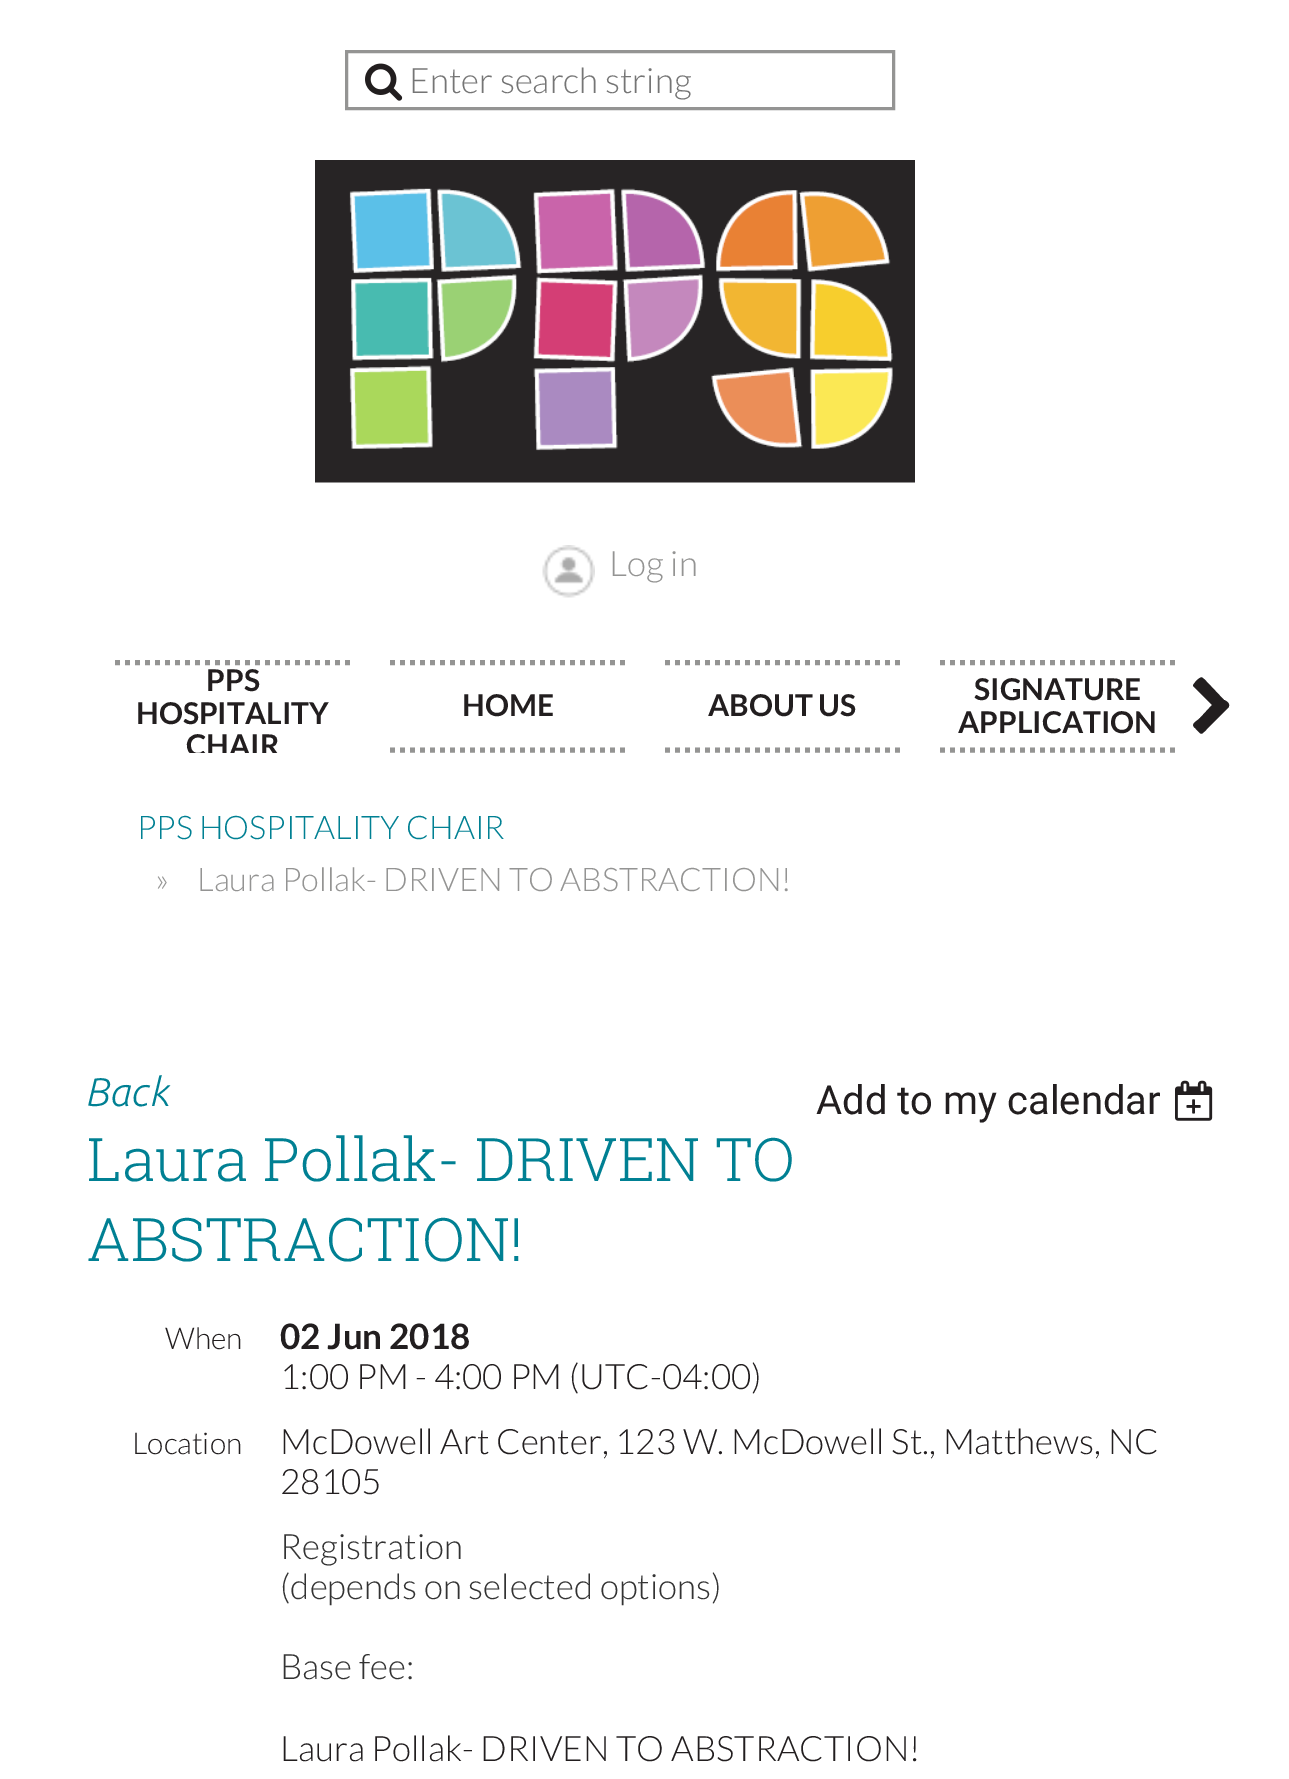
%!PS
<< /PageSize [1289 1779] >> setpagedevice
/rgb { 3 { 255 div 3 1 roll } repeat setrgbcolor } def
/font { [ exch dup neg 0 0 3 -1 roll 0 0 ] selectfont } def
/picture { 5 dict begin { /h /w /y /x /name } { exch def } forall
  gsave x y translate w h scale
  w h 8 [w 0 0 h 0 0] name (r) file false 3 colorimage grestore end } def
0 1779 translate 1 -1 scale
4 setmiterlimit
255 255 255 rgb
0 0 1289 1779 rectfill
148 148 147 rgb
3 setlinewidth
346.5 51.5 547 57 rectstroke
(img/1.rgb) 365 63 38 38 picture
(img/2.rgb) 315 160 600 323 picture
(img/3.rgb) 542 545 53 53 picture
5 setlinewidth
[5 5] 0 setdash
115 662.5 moveto 350 662.5 lineto stroke
390 662.5 moveto 625 662.5 lineto stroke
390 750 moveto 625 750 lineto stroke
665 662.5 moveto 900 662.5 lineto stroke
665 750 moveto 900 750 lineto stroke
940 662.5 moveto 1175 662.5 lineto stroke
940 750 moveto 1175 750 lineto stroke
34 30 31 rgb
1229 707 moveto 1207 729 lineto 1200 736 1202 735 1195 728 curveto 1190 724 1196 722 1200 718 curveto 1212 705 lineto 1193 686 lineto 1193 684 1195 683 1196 681 curveto 1202 676 1201 676 1207 682 curveto 1224 700 lineto 1225 700 1230 703 1229 706 curveto closepath fill
(img/4.rgb) 1175 1080 38 41 picture
/Lato-Light 35 font
117 117 117 rgb
409 93 moveto (Enter search string) show
148 148 147 rgb
609 576 moveto (Log in) show
/Lato-Bold 30 font
34 30 31 rgb
206 691 moveto (PPS) show
136 724 moveto (HOSPITALITY) show
gsave
95 660 1100 93 rectclip
186 756 moveto (CHAIR) show
grestore
[
  [(HOME) 462 716]
  [(ABOUT US) 708 716]
  [(SIGNATURE) 974 700]
  [(APPLICATION) 958 733]
] { aload pop moveto show } forall
/Lato-Light 32.5 font
0 128 147 rgb
137 839 moveto (PPS HOSPITALITY CHAIR) show
148 148 147 rgb
155 891 moveto (») show
197 891 moveto (Laura Pollak- DRIVEN TO ABSTRACTION!) show
/Ubuntu-LightItalic 40 font
0 128 147 rgb
87 1106 moveto (Back) show
/Roboto-Regular 40 font
34 30 31 rgb
816 1114 moveto (Add to my calendar) show
/RobotoSlab-Light 60 font
0 128 147 rgb
87 1181 moveto (Laura Pollak- DRIVEN TO) show
87 1261 moveto (ABSTRACTION!) show
/Lato-Light 30 font
34 30 31 rgb
165 1349 moveto (When) show
/Lato-Bold 35 font
280 1349 moveto (02 Jun 2018) show
/Lato-Light 35 font
280 1389 moveto (1:00 PM - 4:00 PM \(UTC-04:00\)) show
/Lato-Light 30 font
132 1454 moveto (Location) show
/Lato-Light 35 font
280 1454 moveto (McDowell Art Center, 123 W. McDowell St., Matthews, NC) show
280 1494 moveto (28105) show
51 51 51 rgb
[
  [(Registration) 280 1559]
  [(\(depends on selected options\)) 280 1599]
  [(Base fee:) 280 1679]
] { aload pop moveto show } forall
34 30 31 rgb
280 1761 moveto (Laura Pollak- DRIVEN TO ABSTRACTION!) show
showpage
